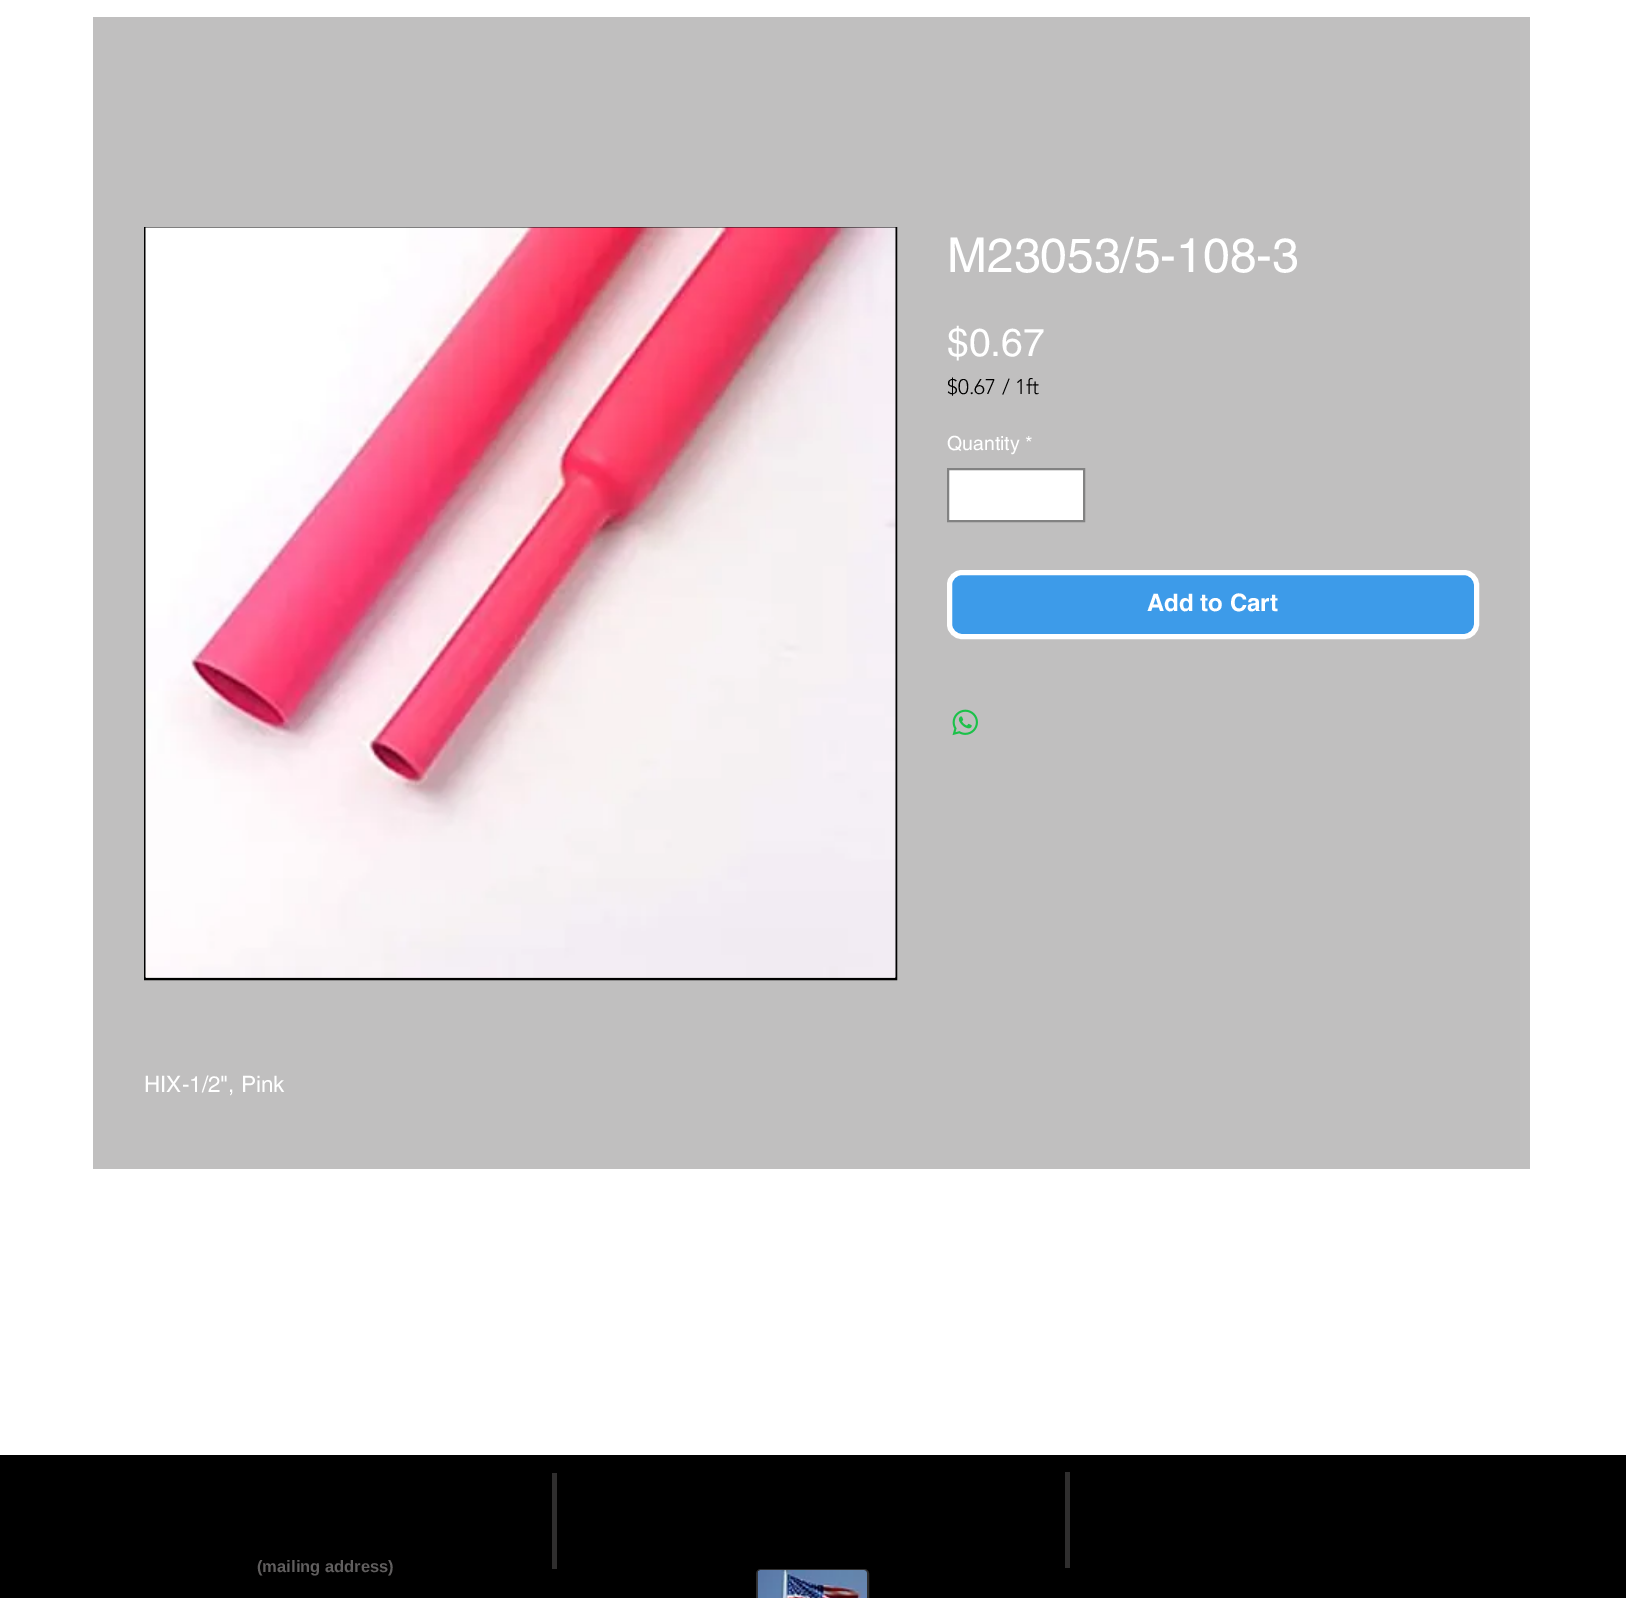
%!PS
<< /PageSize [1626 1598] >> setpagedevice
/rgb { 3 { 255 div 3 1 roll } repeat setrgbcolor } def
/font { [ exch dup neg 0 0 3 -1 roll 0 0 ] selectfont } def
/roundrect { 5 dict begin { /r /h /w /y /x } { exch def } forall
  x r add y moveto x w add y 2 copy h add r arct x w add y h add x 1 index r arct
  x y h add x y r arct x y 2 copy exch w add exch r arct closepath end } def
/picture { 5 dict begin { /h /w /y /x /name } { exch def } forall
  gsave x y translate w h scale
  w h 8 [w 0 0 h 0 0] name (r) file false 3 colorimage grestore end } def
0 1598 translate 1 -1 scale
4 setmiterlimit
255 255 255 rgb
0 0 1626 1598 rectfill
192 191 191 rgb
93 17 1437 1152 rectfill
255 255 255 rgb
948 469 moveto 1084 469 lineto 1084 521 lineto 948 521 lineto closepath gsave fill grestore
130 130 130 rgb
2 setlinewidth
stroke
61 155 233 rgb
949.5 572.5 527 64 12.5 roundrect gsave fill grestore
255 255 255 rgb
5 setlinewidth
stroke
(img/1.rgb) 952 709 26 27 picture
0 0 0 rgb
2 setlinewidth
145 228 751 751 rectstroke
(img/2.rgb) 145 227 751 751 picture
0 1455 1626 143 rectfill
47 46 46 rgb
552 1473 5 96 rectfill
757 1570 111 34 4 roundrect stroke
(img/3.rgb) 757 1570 110 28 picture
1065 1472 5 96 rectfill
/helvetica-Regular 48 font
255 255 255 rgb
947 272 moveto (M23053/5-108-3) show
/helvetica-Regular 39 font
947 356 moveto ($0.67) show
/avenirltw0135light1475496-Light 21 font
0 0 0 rgb
947 394 moveto ($0.67 / 1ft) show
/helvetica-Regular 19.5 font
255 255 255 rgb
947 450 moveto (Quantity) show
1025 450 moveto (*) show
/helvetica-Bold 24 font
1147 611 moveto (Add to Cart) show
/helvetica-Regular 22.5 font
144 1092 moveto (HIX-1/2", Pink) show
/LiberationSans-Bold 16.5 font
96 94 94 rgb
257 1572 moveto (\(mailing address\)) show
showpage
